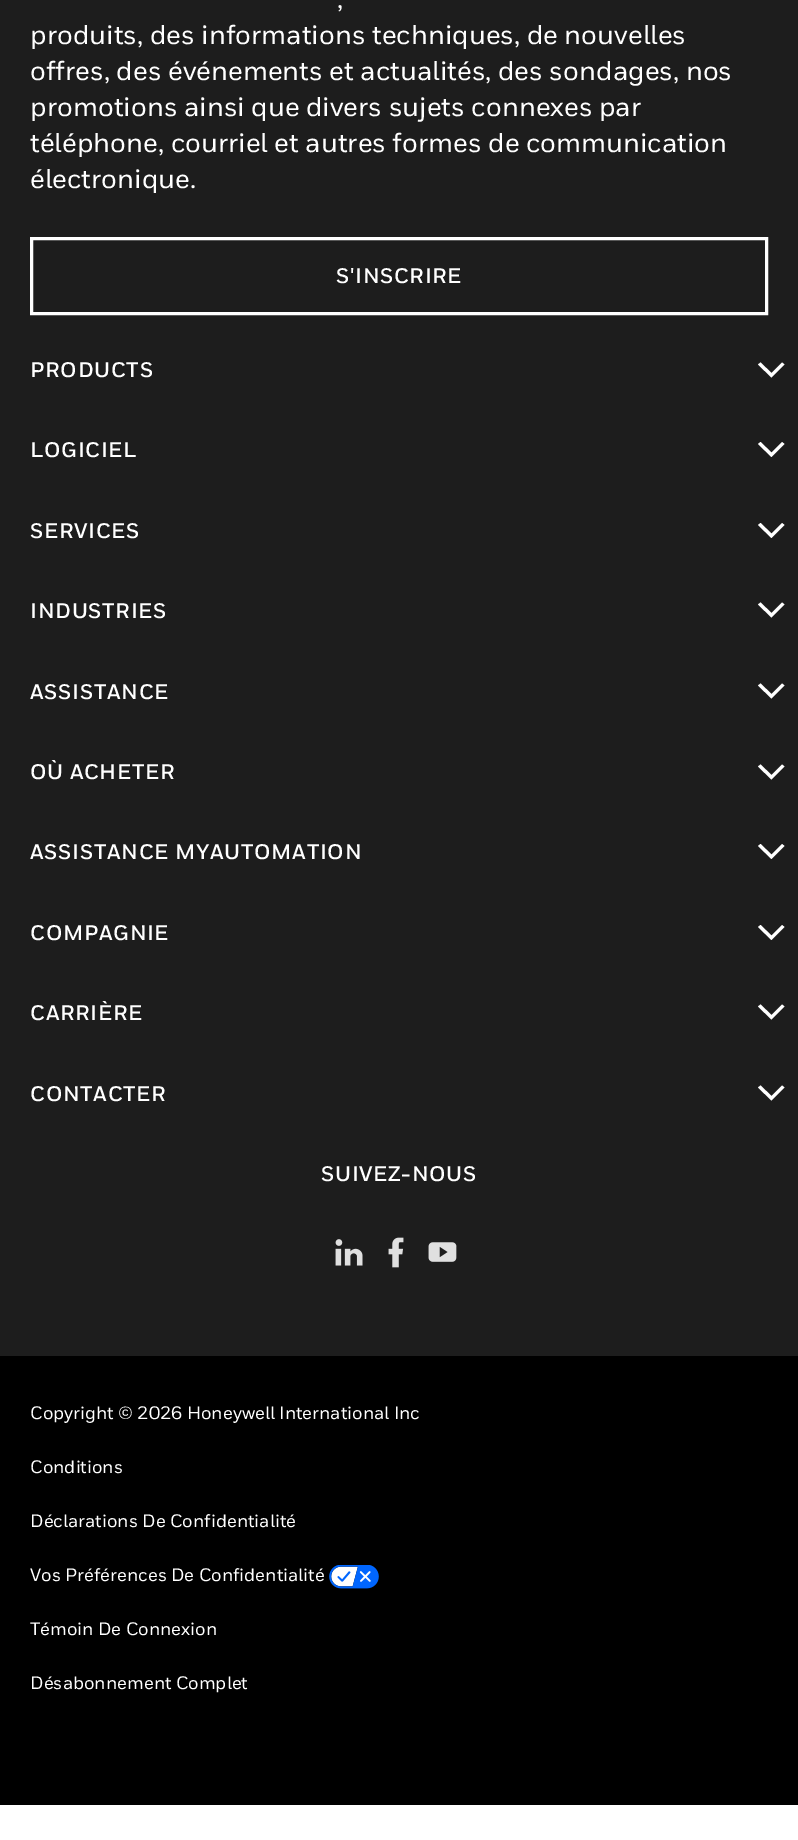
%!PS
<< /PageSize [798 1840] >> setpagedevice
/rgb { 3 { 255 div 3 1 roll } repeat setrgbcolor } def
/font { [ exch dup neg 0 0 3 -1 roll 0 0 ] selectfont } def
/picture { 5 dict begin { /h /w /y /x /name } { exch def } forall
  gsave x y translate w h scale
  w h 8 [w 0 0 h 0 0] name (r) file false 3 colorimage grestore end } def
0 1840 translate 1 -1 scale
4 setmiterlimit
255 255 255 rgb
0 0 798 1840 rectfill
29 29 29 rgb
0 0 798 1356 rectfill
255 255 255 rgb
3 setlinewidth
31.5 238.5 735 75 rectstroke
782 362.5 moveto 784.5 364.5 lineto 771.5 377.5 lineto 758 364.5 lineto 760.5 362.5 lineto 771.5 373 lineto closepath fill
782 442 moveto 784.5 444 lineto 771.5 457 lineto 758 444 lineto 760.5 442 lineto 771.5 452.5 lineto closepath fill
782 523 moveto 784.5 525 lineto 771.5 538 lineto 758 525 lineto 760.5 523 lineto 771.5 533.5 lineto closepath fill
782 602.5 moveto 784.5 604.5 lineto 771.5 617.5 lineto 758 604.5 lineto 760.5 602.5 lineto 771.5 613 lineto closepath fill
782 683.5 moveto 784.5 685.5 lineto 771.5 698.5 lineto 758 685.5 lineto 760.5 683.5 lineto 771.5 694 lineto closepath fill
782 764.5 moveto 784.5 766.5 lineto 771.5 779.5 lineto 758 766.5 lineto 760.5 764.5 lineto 771.5 775 lineto closepath fill
782 844 moveto 784.5 846 lineto 771.5 859 lineto 758 846 lineto 760.5 844 lineto 771.5 854.5 lineto closepath fill
782 925 moveto 784.5 927 lineto 771.5 940 lineto 758 927 lineto 760.5 925 lineto 771.5 935.5 lineto closepath fill
782 1004.5 moveto 784.5 1006.5 lineto 771.5 1019.5 lineto 758 1006.5 lineto 760.5 1004.5 lineto 771.5 1015 lineto closepath fill
782 1085.5 moveto 784.5 1087.5 lineto 771.5 1100.5 lineto 758 1087.5 lineto 760.5 1085.5 lineto 771.5 1096 lineto closepath fill
(img/1.rgb) 335 1239 28 27 picture
(img/2.rgb) 388 1237 16 31 picture
(img/3.rgb) 428 1242 29 20 picture
0 0 0 rgb
0 1356 798 449 rectfill
(img/4.rgb) 329 1565 50 24 picture
/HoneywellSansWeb-Medium 27 font
255 255 255 rgb
[
  [(,) 337 8]
  [(produits, des informations techniques, de nouvelles) 30 44]
  [(offres, des événements et actualités, des sondages, nos) 30 80]
  [(promotions ainsi que divers sujets connexes par) 30 116]
  [(téléphone, courriel et autres formes de communication) 30 152]
  [(électronique.) 30 188]
] { aload pop moveto show } forall
/HoneywellSansWeb-Bold 21 font
336 283 moveto 0.75 0 (S'INSCRIRE) ashow
30 377 moveto 0.75 0 (PRODUCTS) ashow
30 457 moveto 0.75 0 (LOGICIEL) ashow
30 538 moveto 0.75 0 (SERVICES) ashow
30 618 moveto 0.75 0 (INDUSTRIES) ashow
30 699 moveto 0.75 0 (ASSISTANCE) ashow
30 779 moveto 0.75 0 (OÙ ACHETER) ashow
30 859 moveto 0.75 0 (ASSISTANCE MYAUTOMATION) ashow
30 940 moveto 0.75 0 (COMPAGNIE) ashow
30 1020 moveto 0.75 0 (CARRIÈRE) ashow
30 1101 moveto 0.75 0 (CONTACTER) ashow
321 1181 moveto 0.75 0 (SUIVEZ-NOUS) ashow
/HoneywellSansWeb-Medium 18 font
[
  [(Copyright © 2026 Honeywell International Inc) 30 1419]
  [(Conditions) 30 1473]
  [(Déclarations De Confidentialité) 30 1527]
  [(Vos Préférences De Confidentialité) 30 1581]
  [(Témoin De Connexion) 30 1635]
  [(Désabonnement Complet) 30 1689]
] { aload pop moveto show } forall
showpage
